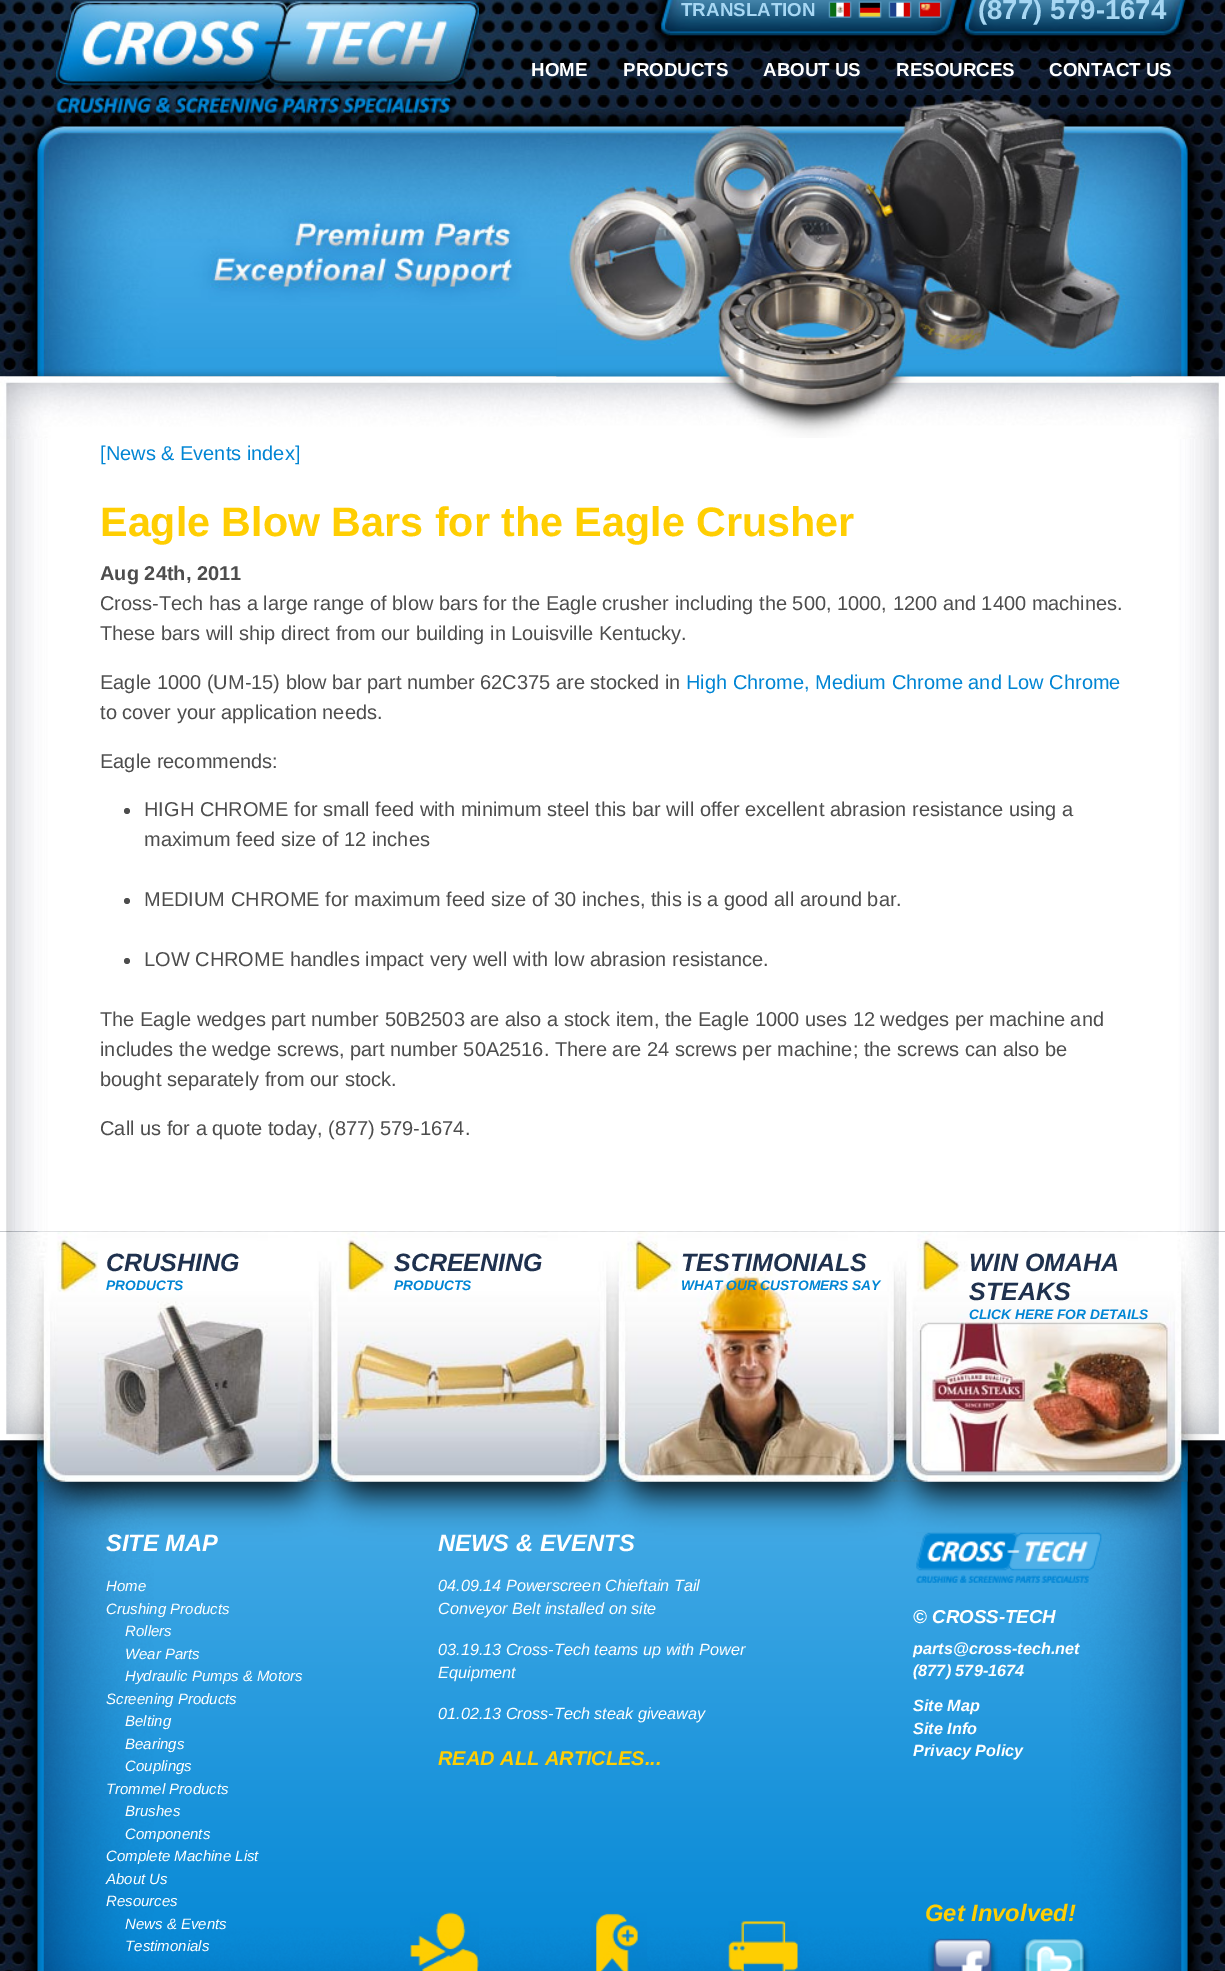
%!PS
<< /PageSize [1225 1971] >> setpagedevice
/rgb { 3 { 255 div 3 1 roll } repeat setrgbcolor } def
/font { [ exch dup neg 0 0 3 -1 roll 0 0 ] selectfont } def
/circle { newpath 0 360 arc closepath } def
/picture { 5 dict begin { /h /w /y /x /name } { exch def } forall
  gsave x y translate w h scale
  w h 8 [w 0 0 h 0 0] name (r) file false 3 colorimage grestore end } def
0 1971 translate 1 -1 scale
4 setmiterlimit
255 255 255 rgb
0 0 1225 1971 rectfill
(img/1.rgb) 0 376 1225 1595 picture
(img/2.rgb) 0 0 1225 377 picture
(img/3.rgb) 640 0 563 58 picture
(img/4.rgb) 828 1 24 17 picture
(img/5.rgb) 858 1 24 17 picture
(img/6.rgb) 888 1 24 17 picture
(img/7.rgb) 918 1 24 17 picture
(img/9.rgb) 0 376 1225 856 picture
(img/10.rgb) 0 376 1225 63 picture
(img/8.rgb) 556 95 576 343 picture
77 77 77 rgb
127 811 3 circle fill
127 901 3 circle fill
127 961 3 circle fill
(img/11.rgb) 0 1231 1225 740 picture
(img/12.rgb) 37 1231 288 251 picture
(img/13.rgb) 325 1231 288 251 picture
(img/14.rgb) 612 1231 288 251 picture
(img/15.rgb) 900 1231 288 251 picture
(img/16.rgb) 916 1532 186 51 picture
(img/17.rgb) 410 1912 69 59 picture
(img/18.rgb) 591 1913 56 58 picture
(img/19.rgb) 728 1921 70 50 picture
(img/20.rgb) 928 1938 70 33 picture
(img/21.rgb) 1019 1938 71 33 picture
/LiberationSans-Bold 18.75 font
167 215 243 rgb
681 16 moveto (TRANSLATION) show
/LiberationSans-Bold 27.5 font
978 19 moveto (\(877\) 579-1674) show
/LiberationSans-Bold 18.75 font
255 255 255 rgb
[
  [(HOME) 531 76]
  [(PRODUCTS) 623 76]
  [(ABOUT US) 763 76]
  [(RESOURCES) 896 76]
  [(CONTACT US) 1049 76]
] { aload pop moveto show } forall
/LiberationSans-Regular 20 font
0 133 212 rgb
100 460 moveto ([News & Events index]) show
/LiberationSans-Bold 41.25 font
255 206 2 rgb
100 536 moveto (Eagle Blow Bars for the Eagle Crusher) show
/LiberationSans-Bold 20 font
77 77 77 rgb
100 580 moveto (Aug 24th, 2011) show
/LiberationSans-Regular 20 font
[
  [(Cross-Tech has a large range of blow bars for the Eagle crusher including the 500, 1000, 1200 and 1400 machines.) 100 610]
  [(These bars will ship direct from our building in Louisville Kentucky.) 100 640]
  [(Eagle 1000 \(UM-15\) blow bar part number 62C375 are stocked in) 100 689]
] { aload pop moveto show } forall
0 133 212 rgb
686 689 moveto (High Chrome, Medium Chrome and Low Chrome) show
77 77 77 rgb
[
  [(to cover your application needs.) 100 719]
  [(Eagle recommends:) 100 768]
  [(HIGH CHROME for small feed with minimum steel this bar will offer excellent abrasion resistance using a) 144 816]
  [(maximum feed size of 12 inches) 144 846]
  [(MEDIUM CHROME for maximum feed size of 30 inches, this is a good all around bar.) 144 906]
  [(LOW CHROME handles impact very well with low abrasion resistance.) 144 966]
  [(The Eagle wedges part number 50B2503 are also a stock item, the Eagle 1000 uses 12 wedges per machine and) 100 1026]
  [(includes the wedge screws, part number 50A2516. There are 24 screws per machine; the screws can also be) 100 1056]
  [(bought separately from our stock.) 100 1086]
  [(Call us for a quote today, \(877\) 579-1674.) 100 1135]
] { aload pop moveto show } forall
/LiberationSans-BoldItalic 25 font
31 49 78 rgb
106 1271 moveto (CRUSHING) show
/LiberationSans-BoldItalic 13.75 font
0 133 212 rgb
106 1290 moveto (PRODUCTS) show
/LiberationSans-BoldItalic 25 font
31 49 78 rgb
394 1271 moveto (SCREENING) show
/LiberationSans-BoldItalic 13.75 font
0 133 212 rgb
394 1290 moveto (PRODUCTS) show
/LiberationSans-BoldItalic 25 font
31 49 78 rgb
681 1271 moveto (TESTIMONIALS) show
/LiberationSans-BoldItalic 13.75 font
0 133 212 rgb
681 1290 moveto (WHAT OUR CUSTOMERS SAY) show
/LiberationSans-BoldItalic 25 font
31 49 78 rgb
969 1271 moveto (WIN OMAHA) show
969 1300 moveto (STEAKS) show
/LiberationSans-BoldItalic 13.75 font
0 133 212 rgb
969 1319 moveto (CLICK HERE FOR DETAILS) show
/LiberationSans-BoldItalic 23.75 font
255 255 255 rgb
106 1551 moveto (SITE MAP) show
/LiberationSans-Italic 15 font
[
  [(Home) 106 1591]
  [(Crushing Products) 106 1614]
  [(Rollers) 125 1636]
  [(Wear Parts) 125 1659]
  [(Hydraulic Pumps & Motors) 125 1681]
  [(Screening Products) 106 1704]
  [(Belting) 125 1726]
  [(Bearings) 125 1749]
  [(Couplings) 125 1771]
  [(Trommel Products) 106 1794]
  [(Brushes) 125 1816]
  [(Components) 125 1839]
  [(Complete Machine List) 106 1861]
  [(About Us) 106 1884]
  [(Resources) 106 1906]
  [(News & Events) 125 1929]
  [(Testimonials) 125 1951]
] { aload pop moveto show } forall
/LiberationSans-BoldItalic 23.75 font
438 1551 moveto (NEWS & EVENTS) show
/LiberationSans-Italic 16.25 font
[
  [(04.09.14 Powerscreen Chieftain Tail) 438 1591]
  [(Conveyor Belt installed on site) 438 1614]
  [(03.19.13 Cross-Tech teams up with Power) 438 1655]
  [(Equipment) 438 1678]
  [(01.02.13 Cross-Tech steak giveaway) 438 1719]
] { aload pop moveto show } forall
/LiberationSans-BoldItalic 20 font
255 206 2 rgb
438 1765 moveto (READ ALL ARTICLES...) show
/LiberationSans-BoldItalic 18.75 font
255 255 255 rgb
913 1623 moveto (© CROSS-TECH) show
/LiberationSans-BoldItalic 16.25 font
[
  [(parts@cross-tech.net) 913 1654]
  [(\(877\) 579-1674) 913 1676]
  [(Site Map) 913 1711]
  [(Site Info) 913 1734]
  [(Privacy Policy) 913 1756]
] { aload pop moveto show } forall
/LiberationSans-BoldItalic 23.75 font
255 206 2 rgb
925 1921 moveto (Get Involved!) show
showpage
